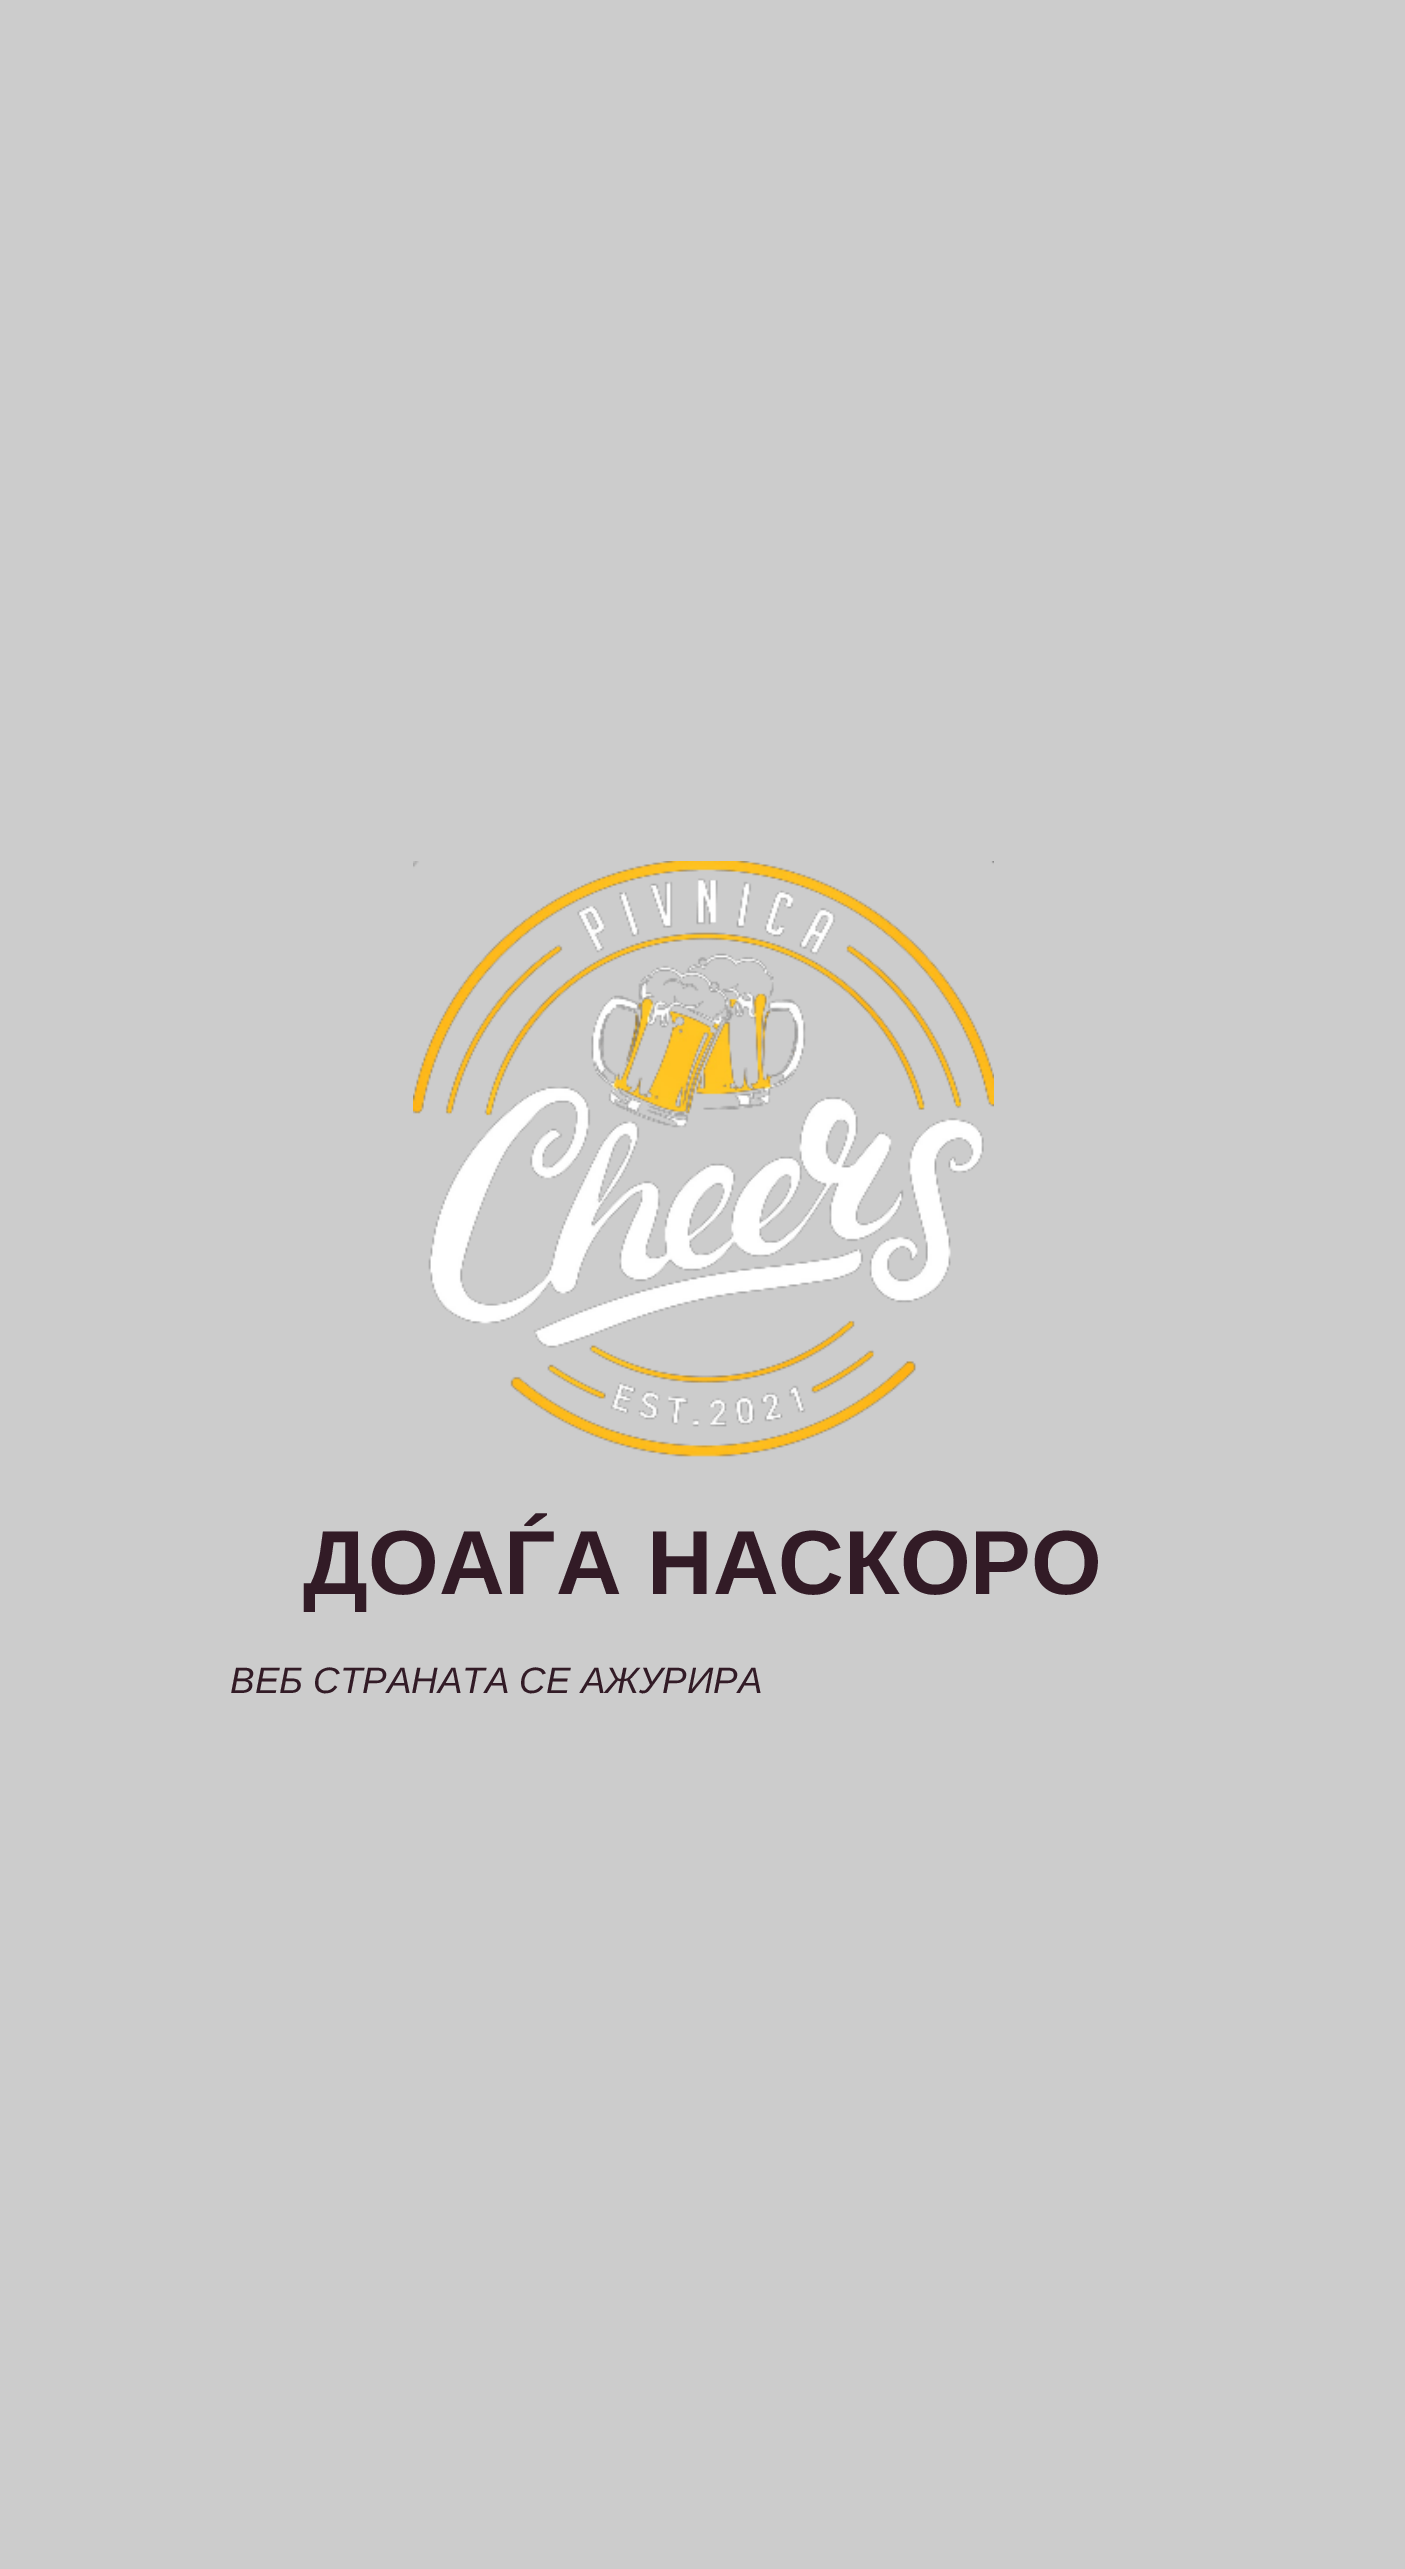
%!PS
<< /PageSize [1405 2569] >> setpagedevice
/rgb { 3 { 255 div 3 1 roll } repeat setrgbcolor } def
/font { [ exch dup neg 0 0 3 -1 roll 0 0 ] selectfont } def
/picture { 5 dict begin { /h /w /y /x /name } { exch def } forall
  gsave x y translate w h scale
  w h 8 [w 0 0 h 0 0] name (r) file false 3 colorimage grestore end } def
0 2569 translate 1 -1 scale
4 setmiterlimit
204 204 204 rgb
0 0 1405 2569 rectfill
(img/1.rgb) 413 861 581 596 picture
/LiberationSans-Bold 91 font
50 27 38 rgb
303 1594 moveto (ДОАЃА НАСКОРО) show
/LiberationSans-Italic 36.75 font
230 1693 moveto (ВЕБ СТРАНАТА СЕ АЖУРИРА) show
showpage
